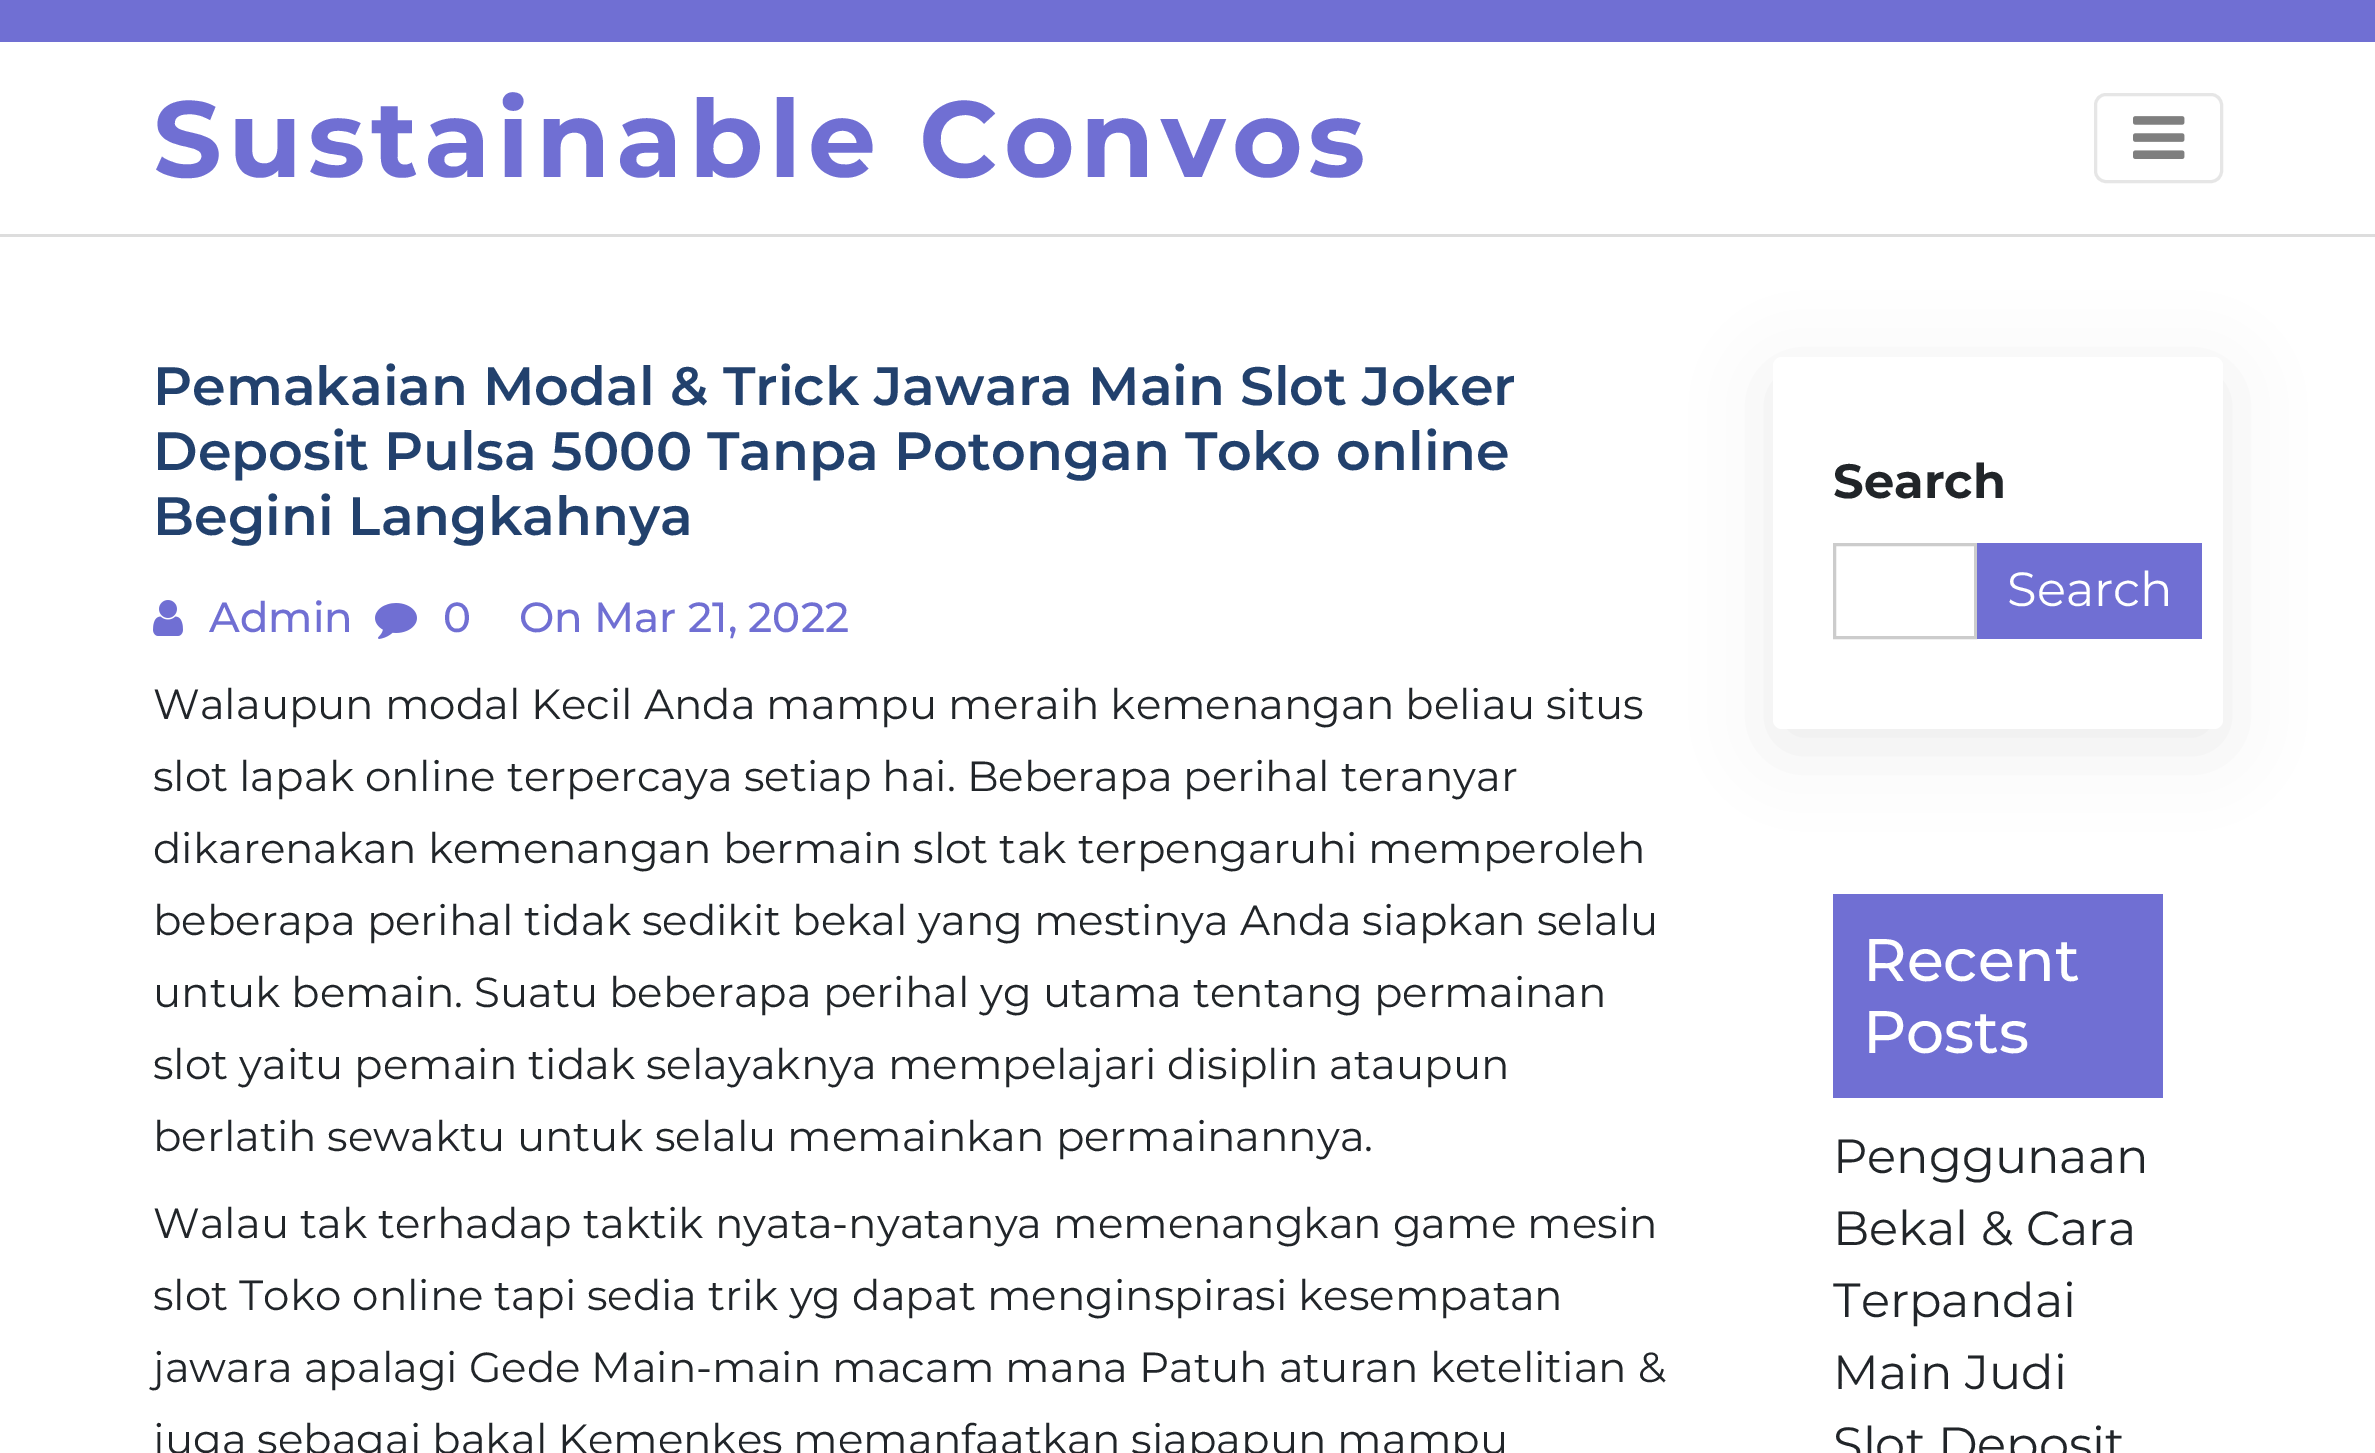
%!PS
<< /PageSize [2375 1453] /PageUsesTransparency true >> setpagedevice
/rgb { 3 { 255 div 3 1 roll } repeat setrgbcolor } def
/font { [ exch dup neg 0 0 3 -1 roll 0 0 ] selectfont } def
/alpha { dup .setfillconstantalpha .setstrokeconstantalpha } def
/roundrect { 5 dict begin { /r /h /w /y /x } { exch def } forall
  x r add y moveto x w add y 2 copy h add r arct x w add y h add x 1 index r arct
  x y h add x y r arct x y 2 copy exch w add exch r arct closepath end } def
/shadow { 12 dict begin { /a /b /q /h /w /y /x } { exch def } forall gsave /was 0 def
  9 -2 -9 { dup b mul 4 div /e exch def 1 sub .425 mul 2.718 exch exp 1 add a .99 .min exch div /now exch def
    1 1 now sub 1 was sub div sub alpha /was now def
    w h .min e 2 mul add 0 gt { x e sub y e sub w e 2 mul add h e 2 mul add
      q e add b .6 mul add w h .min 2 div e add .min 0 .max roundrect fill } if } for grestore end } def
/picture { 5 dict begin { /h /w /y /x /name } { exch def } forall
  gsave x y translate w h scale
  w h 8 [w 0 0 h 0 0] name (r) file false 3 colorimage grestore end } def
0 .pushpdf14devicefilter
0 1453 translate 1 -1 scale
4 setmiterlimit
255 255 255 rgb
0 0 2375 1453 rectfill
112 111 211 rgb
0 0 2375 42 rectfill
221 221 221 rgb
0 234 2375 3 rectfill
230 230 230 rgb
3 setlinewidth
2095.5 94.5 126 87 10.5 roundrect stroke
(img/1.rgb) 2133 116 52 43 picture
(img/2.rgb) 153 600 30 36 picture
(img/3.rgb) 375 603 42 36 picture
0 0 0 rgb
1773 375 450 372 9 37.5 0.07 shadow
255 255 255 rgb
1773 357 450 372 9 roundrect fill
204 204 204 rgb
1834.5 544.5 141 93 rectstroke
112 111 211 rgb
1977 543 225 96 rectfill
1833 894 330 204 rectfill
/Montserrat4-Thin 108 font
153 177 moveto 6 0 (Sustainable Convos) ashow
/Montserrat-Thin 54 font
34 65 109 rgb
[
  [(Pemakaian Modal & Trick Jawara Main Slot Joker) 153 405]
  [(Deposit Pulsa 5000 Tanpa Potongan Toko online) 153 470]
  [(Begini Langkahnya) 153 535]
] { aload pop moveto show } forall
/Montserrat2-Thin 42 font
112 111 211 rgb
[
  [(Admin) 209 632]
  [(0) 443 632]
  [(On Mar 21, 2022) 519 632]
] { aload pop moveto show } forall
/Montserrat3-Thin 42 font
33 37 41 rgb
[
  [(Walaupun modal Kecil Anda mampu meraih kemenangan beliau situs) 153 719]
  [(slot lapak online terpercaya setiap hai. Beberapa perihal teranyar) 153 791]
  [(dikarenakan kemenangan bermain slot tak terpengaruhi memperoleh) 153 863]
  [(beberapa perihal tidak sedikit bekal yang mestinya Anda siapkan selalu) 153 935]
  [(untuk bemain. Suatu beberapa perihal yg utama tentang permainan) 153 1007]
  [(slot yaitu pemain tidak selayaknya mempelajari disiplin ataupun) 153 1079]
  [(berlatih sewaktu untuk selalu memainkan permainannya.) 153 1151]
  [(Walau tak terhadap taktik nyata-nyatanya memenangkan game mesin) 153 1238]
  [(slot Toko online tapi sedia trik yg dapat menginspirasi kesempatan) 153 1310]
  [(jawara apalagi Gede Main-main macam mana Patuh aturan ketelitian &) 153 1382]
  [(juga sebagai bakal Kemenkes memanfaatkan siapapun mampu) 153 1454]
] { aload pop moveto show } forall
/Montserrat4-Thin 48 font
1833 498 moveto (Search) show
/Montserrat3-Thin 48 font
255 255 255 rgb
2007 606 moveto (Search) show
/Montserrat2-Thin 60 font
1863 981 moveto (Recent) show
1863 1053 moveto (Posts) show
/Montserrat3-Thin 48 font
33 37 41 rgb
[
  [(Penggunaan) 1833 1173]
  [(Bekal & Cara) 1833 1245]
  [(Terpandai) 1833 1317]
  [(Main Judi) 1833 1389]
  [(Slot Deposit) 1833 1461]
] { aload pop moveto show } forall
.poppdf14devicefilter showpage
